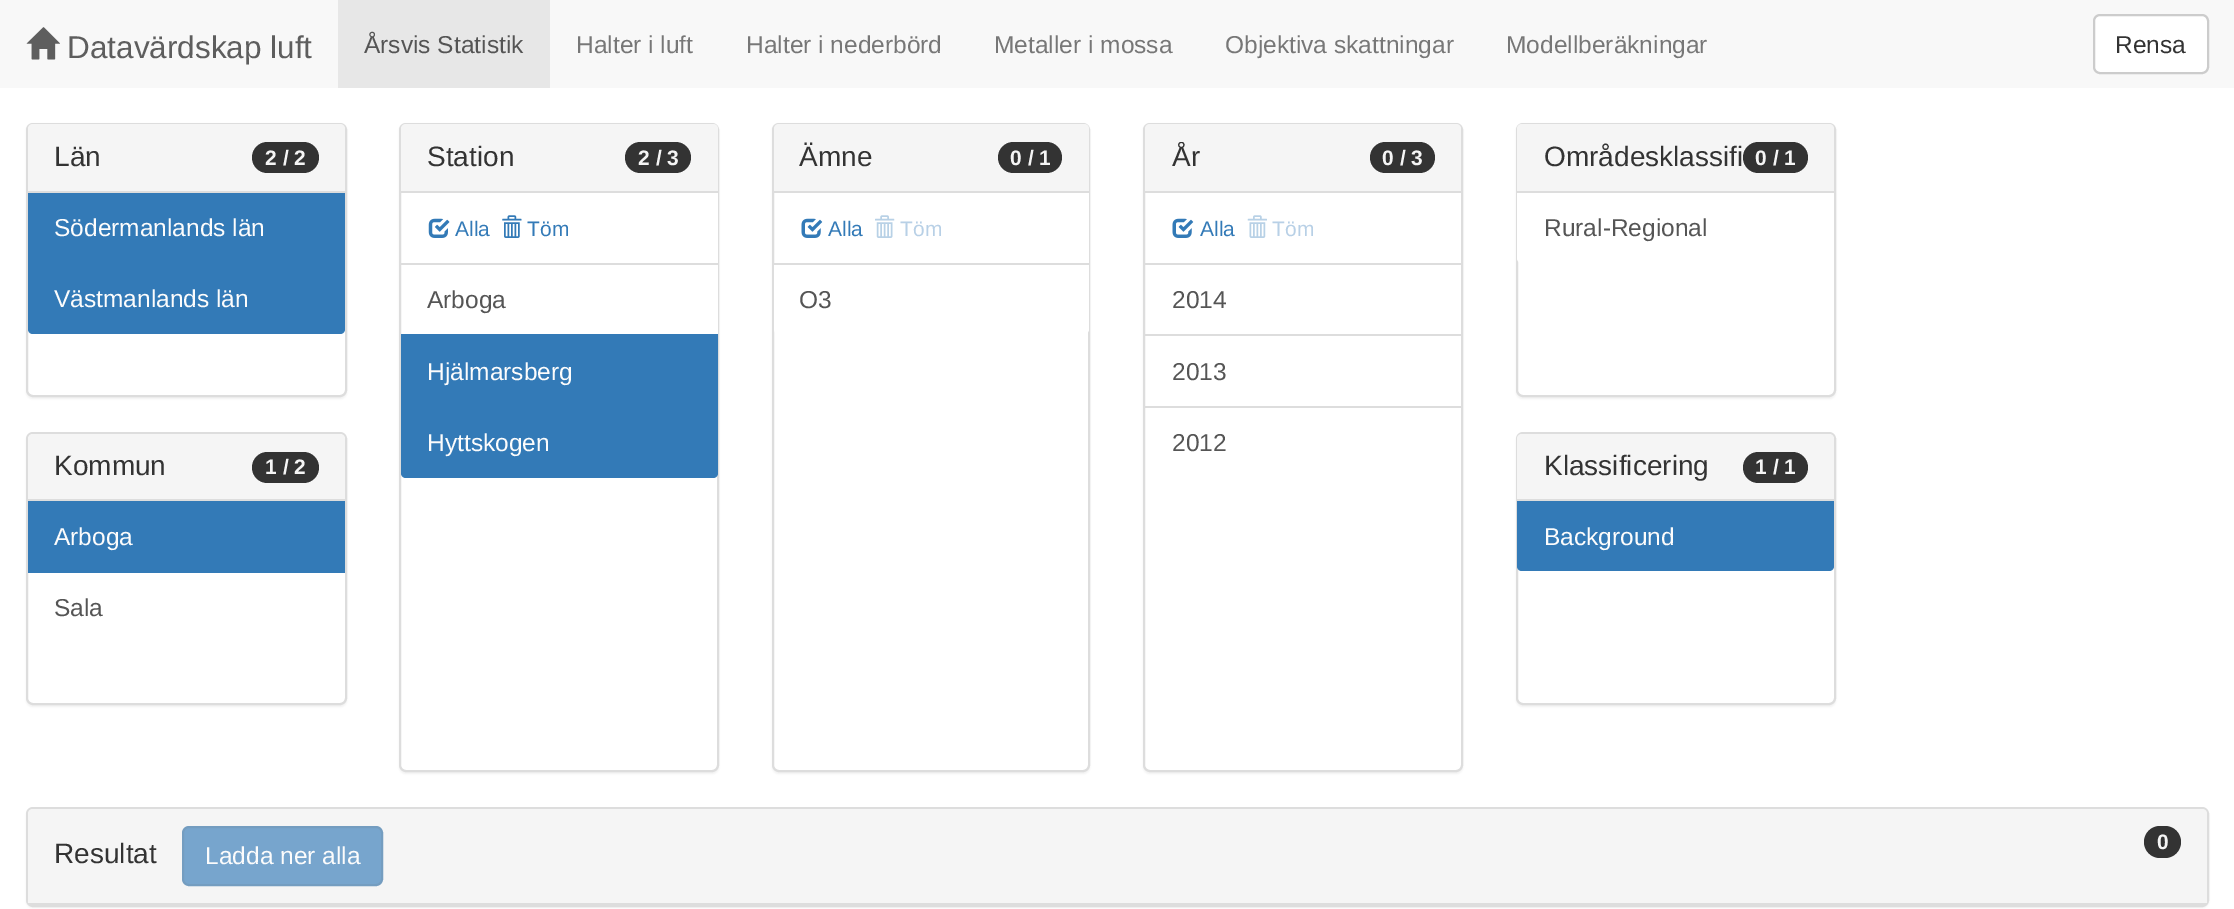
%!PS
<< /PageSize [2234 909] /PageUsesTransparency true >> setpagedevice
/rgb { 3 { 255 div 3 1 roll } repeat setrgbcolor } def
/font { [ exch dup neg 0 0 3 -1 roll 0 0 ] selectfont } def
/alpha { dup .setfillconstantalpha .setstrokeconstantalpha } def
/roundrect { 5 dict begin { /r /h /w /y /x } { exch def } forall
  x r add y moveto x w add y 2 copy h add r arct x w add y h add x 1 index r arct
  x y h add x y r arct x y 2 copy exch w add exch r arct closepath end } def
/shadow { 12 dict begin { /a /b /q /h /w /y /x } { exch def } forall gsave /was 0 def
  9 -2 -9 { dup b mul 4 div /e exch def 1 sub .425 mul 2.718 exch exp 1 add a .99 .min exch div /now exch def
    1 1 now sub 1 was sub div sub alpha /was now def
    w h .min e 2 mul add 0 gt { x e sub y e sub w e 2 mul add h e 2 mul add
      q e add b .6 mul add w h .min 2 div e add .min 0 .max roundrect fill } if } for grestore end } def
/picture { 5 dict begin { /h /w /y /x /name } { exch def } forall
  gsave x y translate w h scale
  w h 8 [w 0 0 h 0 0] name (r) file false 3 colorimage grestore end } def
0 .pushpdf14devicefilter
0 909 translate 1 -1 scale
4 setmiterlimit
255 255 255 rgb
0 0 2234 909 rectfill
248 248 248 rgb
0 0 2234 88 rectfill
(img/1.rgb) 26 27 34 33 picture
231 231 231 rgb
338 0 212 88 rectfill
255 255 255 rgb
2094 15 114 58 6 roundrect gsave fill grestore
204 204 204 rgb
2 setlinewidth
stroke
0 0 0 rgb
26 124 321 275 7 1 0.05 shadow
255 255 255 rgb
27 124 319 272 6 roundrect gsave fill grestore
221 221 221 rgb
stroke
245 245 245 rgb
33 124 moveto 340 124 lineto 343 124 345 126 345 129 curveto 345 193 lineto 28 193 lineto 28 129 lineto 28 126 30 124 33 124 curveto closepath fill
221 221 221 rgb
28 191 317 2 rectfill
51 51 51 rgb
252 142 67 31 15.5 roundrect fill
51 122 183 rgb
28 193 317 70 rectfill
28 263 moveto 345 263 lineto 345 329 lineto 345 332 343 334 340 334 curveto 33 334 lineto 30 334 28 332 28 329 curveto closepath fill
0 0 0 rgb
26 434 321 273 7 1 0.05 shadow
255 255 255 rgb
27 433 319 271 6 roundrect gsave fill grestore
221 221 221 rgb
stroke
245 245 245 rgb
33 434 moveto 340 434 lineto 343 434 345 436 345 439 curveto 345 501 lineto 28 501 lineto 28 439 lineto 28 436 30 434 33 434 curveto closepath fill
221 221 221 rgb
28 499 317 2 rectfill
51 51 51 rgb
252 452 67 31 15.5 roundrect fill
51 122 183 rgb
28 501 317 72 rectfill
0 0 0 rgb
399 124 320 650 7 1 0.05 shadow
255 255 255 rgb
400 124 318 647 6 roundrect gsave fill grestore
221 221 221 rgb
stroke
245 245 245 rgb
406 124 moveto 713 124 lineto 716 124 718 126 718 129 curveto 718 193 lineto 401 193 lineto 401 129 lineto 401 126 403 124 406 124 curveto closepath fill
221 221 221 rgb
401 191 317 2 rectfill
51 51 51 rgb
625 142 66 31 15.5 roundrect fill
255 255 255 rgb
717 193 1 70 rectfill
(img/2.rgb) 428 218 22 20 picture
(img/3.rgb) 502 215 20 23 picture
[
  [717 265 1 69 255 255 255]
  [401 263 317 2 221 221 221]
  [401 334 317 72 51 122 183]
] { aload pop rgb rectfill } forall
401 406 moveto 718 406 lineto 718 473 lineto 718 476 716 478 713 478 curveto 406 478 lineto 403 478 401 476 401 473 curveto closepath fill
0 0 0 rgb
772 124 318 650 7 1 0.05 shadow
255 255 255 rgb
773 124 316 647 6 roundrect gsave fill grestore
221 221 221 rgb
stroke
245 245 245 rgb
779 124 moveto 1084 124 lineto 1087 124 1089 126 1089 129 curveto 1089 193 lineto 774 193 lineto 774 129 lineto 774 126 776 124 779 124 curveto closepath fill
221 221 221 rgb
774 191 315 2 rectfill
51 51 51 rgb
998 142 64 31 15.5 roundrect fill
255 255 255 rgb
1088 193 1 70 rectfill
(img/4.rgb) 801 218 22 20 picture
(img/5.rgb) 875 215 20 23 picture
774 263 moveto 1089 263 lineto 1089 329 lineto 1089 332 1087 334 1084 334 curveto 779 334 lineto 776 334 774 332 774 329 curveto closepath fill
221 221 221 rgb
774 263 315 2 rectfill
0 0 0 rgb
1143 124 320 650 7 1 0.05 shadow
255 255 255 rgb
1144 124 318 647 6 roundrect gsave fill grestore
221 221 221 rgb
stroke
245 245 245 rgb
1150 124 moveto 1456 124 lineto 1459 124 1461 126 1461 129 curveto 1461 193 lineto 1145 193 lineto 1145 129 lineto 1145 126 1147 124 1150 124 curveto closepath fill
221 221 221 rgb
1145 191 316 2 rectfill
51 51 51 rgb
1370 142 65 31 15.5 roundrect fill
(img/4.rgb) 1172 218 22 20 picture
(img/6.rgb) 1247 215 20 23 picture
[
  [1145 263 316 2 221 221 221]
  [1145 334 316 2 221 221 221]
  [1145 406 316 2 221 221 221]
] { aload pop rgb rectfill } forall
0 0 0 rgb
1516 124 320 275 7 1 0.05 shadow
255 255 255 rgb
1517 124 318 272 6 roundrect gsave fill grestore
221 221 221 rgb
stroke
245 245 245 rgb
1522 124 moveto 1829 124 lineto 1832 124 1834 126 1834 129 curveto 1834 193 lineto 1517 193 lineto 1517 129 lineto 1517 126 1519 124 1522 124 curveto closepath fill
221 221 221 rgb
1517 191 317 2 rectfill
51 51 51 rgb
1743 142 65 31 15.5 roundrect fill
255 255 255 rgb
1517 193 moveto 1834 193 lineto 1834 258 lineto 1834 261 1832 263 1829 263 curveto 1522 263 lineto 1519 263 1517 261 1517 258 curveto closepath fill
0 0 0 rgb
1516 434 320 273 7 1 0.05 shadow
255 255 255 rgb
1517 433 318 271 6 roundrect gsave fill grestore
221 221 221 rgb
stroke
245 245 245 rgb
1522 434 moveto 1829 434 lineto 1832 434 1834 436 1834 439 curveto 1834 501 lineto 1517 501 lineto 1517 439 lineto 1517 436 1519 434 1522 434 curveto closepath fill
221 221 221 rgb
1517 499 317 2 rectfill
51 51 51 rgb
1743 452 65 31 15.5 roundrect fill
51 122 183 rgb
1517 501 moveto 1834 501 lineto 1834 566 lineto 1834 569 1832 571 1829 571 curveto 1522 571 lineto 1519 571 1517 569 1517 566 curveto closepath fill
0 0 0 rgb
26 809 2183 99 7 1 0.05 shadow
221 221 221 rgb
27 808 2181 98 6 roundrect stroke
245 245 245 rgb
33 809 moveto 2202 809 lineto 2205 809 2207 811 2207 814 curveto 2207 905 lineto 28 905 lineto 28 814 lineto 28 811 30 809 33 809 curveto closepath fill
221 221 221 rgb
28 903 2179 2 rectfill
119 165 205 rgb
183 827 199 58 6 roundrect gsave fill grestore
116 157 192 rgb
stroke
51 51 51 rgb
2144 826 37 32 16 roundrect fill
/LiberationSans-Regular 31.5 font
94 94 94 rgb
67 58 moveto (Datavärdskap luft) show
/LiberationSans-Regular 24.5 font
85 85 85 rgb
364 53 moveto (Årsvis Statistik) show
119 119 119 rgb
[
  [(Halter i luft) 576 53]
  [(Halter i nederbörd) 746 53]
  [(Metaller i mossa) 994 53]
  [(Objektiva skattningar) 1225 53]
  [(Modellberäkningar) 1506 53]
] { aload pop moveto show } forall
51 51 51 rgb
2115 53 moveto (Rensa) show
/LiberationSans-Regular 28 font
54 166 moveto (Län) show
/LiberationSans-Bold 21 font
245 245 245 rgb
265 165 moveto (2 / 2) show
/LiberationSans-Regular 24.5 font
252 252 252 rgb
54 236 moveto (Södermanlands län) show
54 307 moveto (Västmanlands län) show
/LiberationSans-Regular 28 font
51 51 51 rgb
54 475 moveto (Kommun) show
/LiberationSans-Bold 21 font
245 245 245 rgb
265 474 moveto (1 / 2) show
/LiberationSans-Regular 24.5 font
252 252 252 rgb
54 545 moveto (Arboga) show
85 85 85 rgb
54 616 moveto (Sala) show
/LiberationSans-Regular 28 font
51 51 51 rgb
427 166 moveto (Station) show
/LiberationSans-Bold 21 font
245 245 245 rgb
638 165 moveto (2 / 3) show
/LiberationSans-Regular 21 font
51 122 183 rgb
455 236 moveto (Alla) show
527 236 moveto (Töm) show
/LiberationSans-Regular 24.5 font
85 85 85 rgb
427 308 moveto (Arboga) show
252 252 252 rgb
427 380 moveto (Hjälmarsberg) show
427 451 moveto (Hyttskogen) show
/LiberationSans-Regular 28 font
51 51 51 rgb
799 166 moveto (Ämne) show
/LiberationSans-Bold 21 font
245 245 245 rgb
1010 165 moveto (0 / 1) show
/LiberationSans-Regular 21 font
51 122 183 rgb
828 236 moveto (Alla) show
184 208 230 rgb
900 236 moveto (Töm) show
/LiberationSans-Regular 24.5 font
85 85 85 rgb
799 308 moveto (O3) show
gsave
1171 142 199 31 rectclip
/LiberationSans-Regular 28 font
51 51 51 rgb
1172 166 moveto (År) show
grestore
/LiberationSans-Bold 21 font
245 245 245 rgb
1382 165 moveto (0 / 3) show
/LiberationSans-Regular 21 font
51 122 183 rgb
1200 236 moveto (Alla) show
184 208 230 rgb
1272 236 moveto (Töm) show
/LiberationSans-Regular 24.5 font
85 85 85 rgb
[
  [(2014) 1172 308]
  [(2013) 1172 380]
  [(2012) 1172 451]
] { aload pop moveto show } forall
/LiberationSans-Regular 28 font
51 51 51 rgb
1544 166 moveto (Områdesklassifi) show
/LiberationSans-Bold 21 font
245 245 245 rgb
1755 165 moveto (0 / 1) show
/LiberationSans-Regular 24.5 font
85 85 85 rgb
1544 236 moveto (Rural-Regional) show
/LiberationSans-Regular 28 font
51 51 51 rgb
1544 475 moveto (Klassificering) show
/LiberationSans-Bold 21 font
245 245 245 rgb
1755 474 moveto (1 / 1) show
/LiberationSans-Regular 24.5 font
252 252 252 rgb
1544 545 moveto (Background) show
/LiberationSans-Regular 28 font
51 51 51 rgb
54 863 moveto (Resultat) show
/LiberationSans-Regular 24.5 font
252 252 252 rgb
205 864 moveto (Ladda ner alla) show
/LiberationSans-Bold 21 font
245 245 245 rgb
2157 849 moveto (0) show
.poppdf14devicefilter showpage
